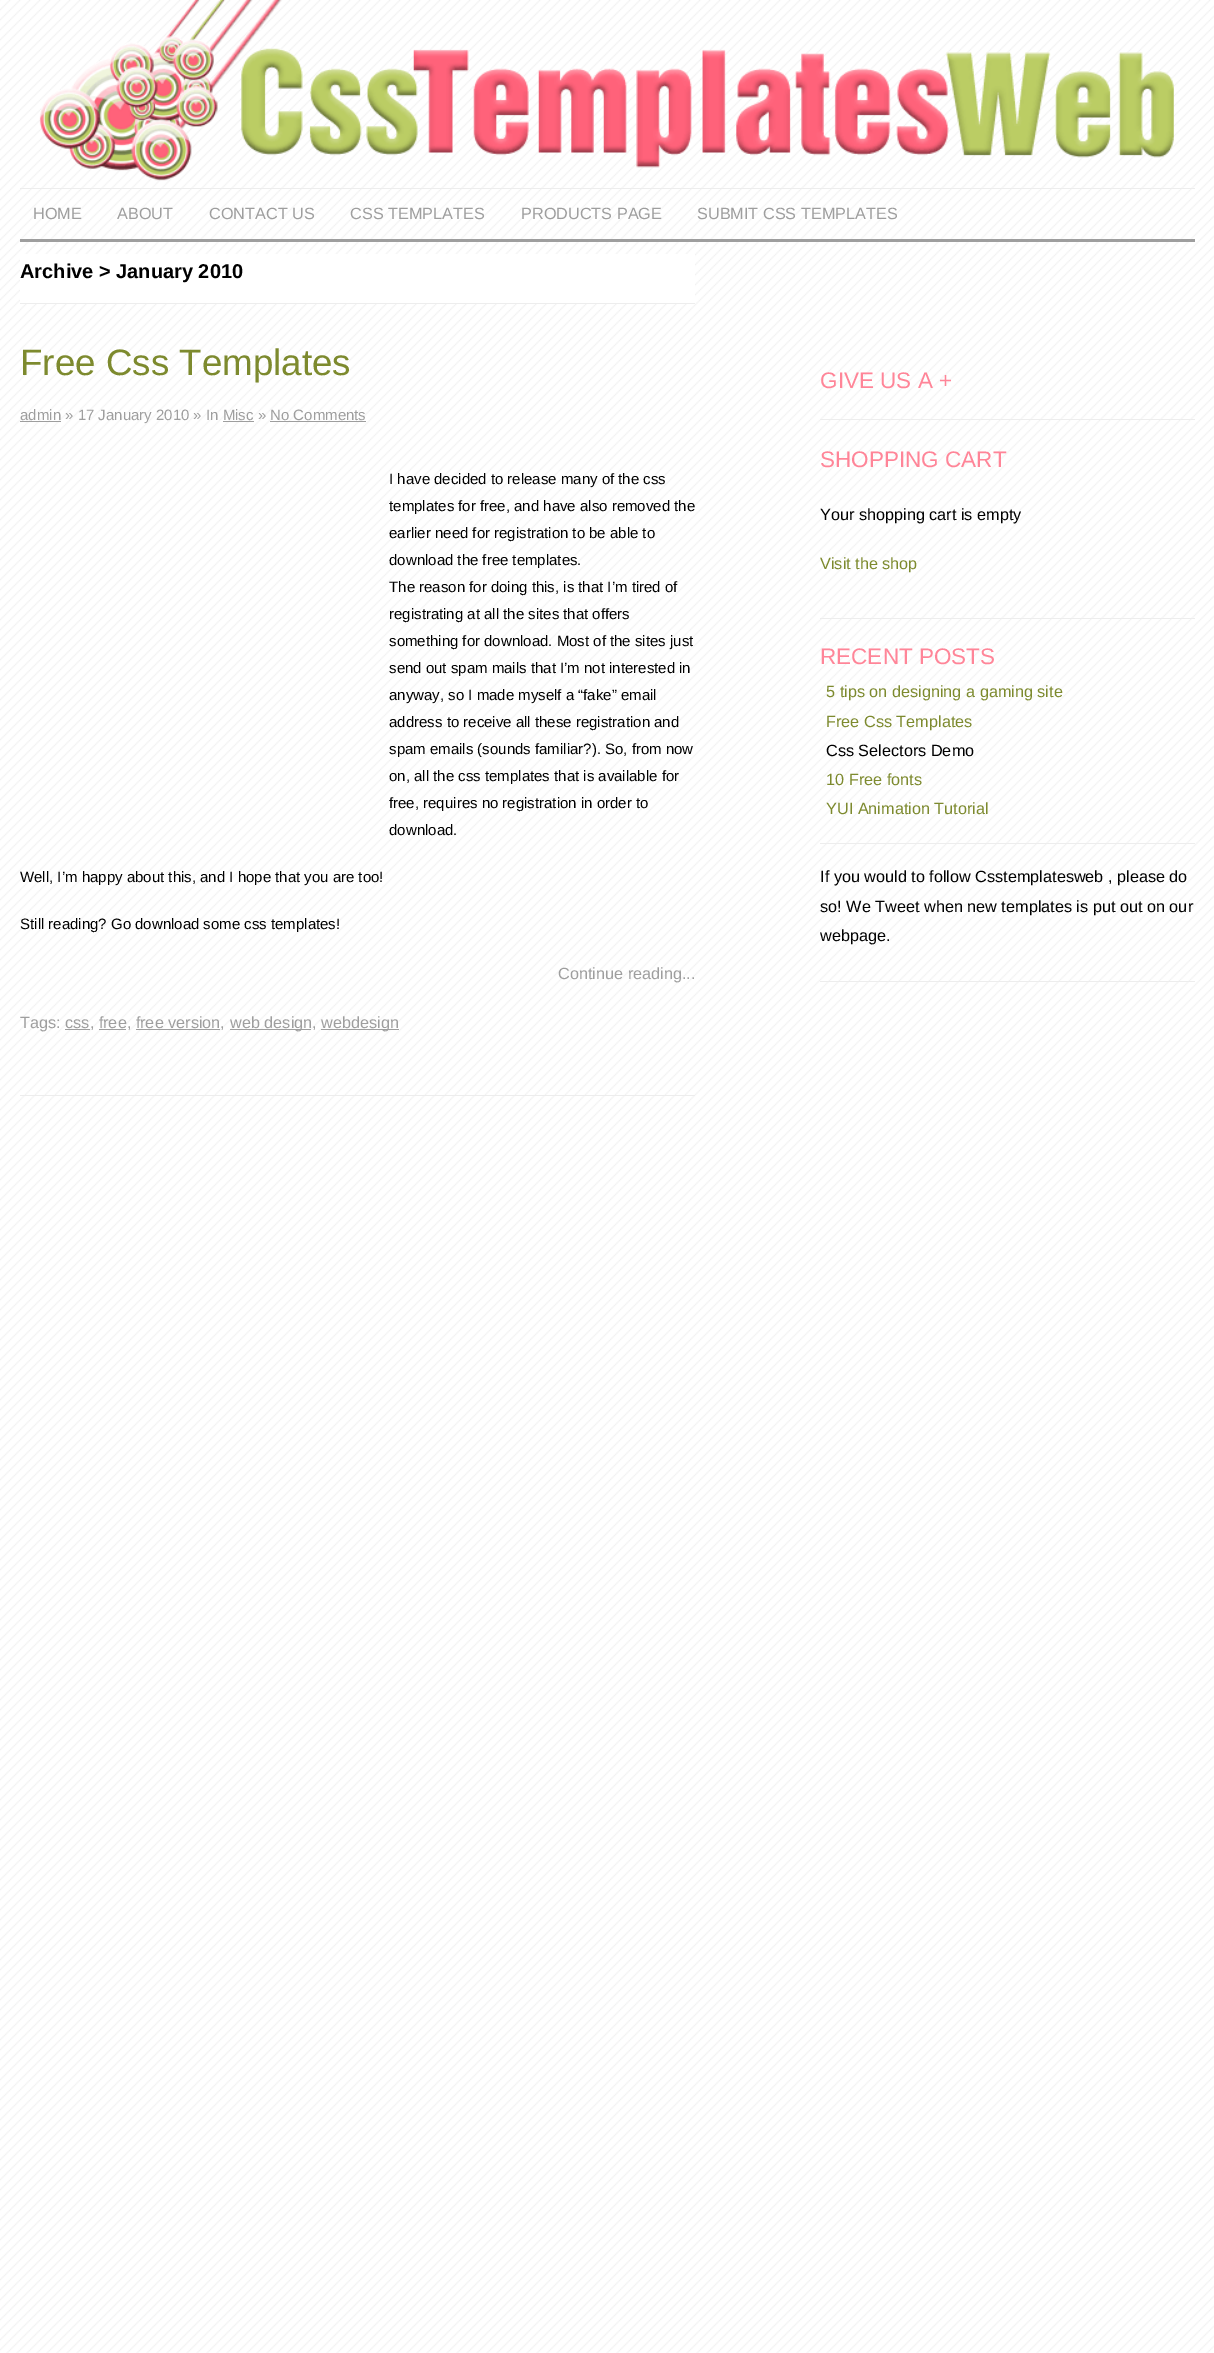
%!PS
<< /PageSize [1214 2353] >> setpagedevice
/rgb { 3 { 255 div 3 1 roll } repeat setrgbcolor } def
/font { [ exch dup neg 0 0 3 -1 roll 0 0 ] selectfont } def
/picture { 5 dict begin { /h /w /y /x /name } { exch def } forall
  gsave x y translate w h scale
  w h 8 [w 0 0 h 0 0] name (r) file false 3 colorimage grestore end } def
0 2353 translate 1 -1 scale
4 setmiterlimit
255 255 255 rgb
0 0 1214 2353 rectfill
(img/1.rgb) 0 0 1214 2353 picture
237 237 237 rgb
20 188 1175 1 rectfill
(img/2.rgb) 39 0 1135 181 picture
[
  [20 239 1175 3 158 158 158]
  [20 254 675 49 255 255 255]
  [20 303 675 1 237 237 237]
  [20 1095 675 1 237 237 237]
  [20 421 41 1 158 158 158]
  [223 421 31 1 158 158 158]
  [270 421 96 1 158 158 158]
  [230 1029 81 1 158 158 158]
  [321 1029 78 1 158 158 158]
  [65 1029 25 1 158 158 158]
  [99 1029 27 1 158 158 158]
  [136 1029 84 1 158 158 158]
  [820 419 375 1 237 237 237]
  [820 618 375 1 237 237 237]
  [820 843 375 1 237 237 237]
  [820 981 375 1 237 237 237]
] { aload pop rgb rectfill } forall
/LiberationSans-Regular 16.25 font
158 158 158 rgb
[
  [(HOME) 33 219]
  [(ABOUT) 117 219]
  [(CONTACT US) 209 219]
  [(CSS TEMPLATES) 350 219]
  [(PRODUCTS PAGE) 521 219]
  [(SUBMIT CSS TEMPLATES) 697 219]
] { aload pop moveto show } forall
/LiberationSans-Bold 20 font
0 0 0 rgb
20 278 moveto (Archive > January 2010) show
/LiberationSans-Regular 36.75 font
125 138 46 rgb
20 375 moveto (Free Css Templates) show
/LiberationSans-Regular 15 font
158 158 158 rgb
20 420 moveto (admin » 17 January 2010 » In Misc » No Comments) show
0 0 0 rgb
[
  [(I have decided to release many of the css) 389 484]
  [(templates for free, and have also removed the) 389 511]
  [(earlier need for registration to be able to) 389 538]
  [(download the free templates.) 389 565]
  [(The reason for doing this, is that I’m tired of) 389 592]
  [(registrating at all the sites that offers) 389 619]
  [(something for download. Most of the sites just) 389 646]
  [(send out spam mails that I’m not interested in) 389 673]
  [(anyway, so I made myself a “fake” email) 389 700]
  [(address to receive all these registration and) 389 727]
  [(spam emails \(sounds familiar?\). So, from now) 389 754]
  [(on, all the css templates that is available for) 389 781]
  [(free, requires no registration in order to) 389 808]
  [(download.) 389 835]
  [(Well, I’m happy about this, and I hope that you are too!) 20 882]
  [(Still reading? Go download some css templates!) 20 929]
] { aload pop moveto show } forall
/LiberationSans-Regular 16.25 font
158 158 158 rgb
[
  [(Continue reading...) 558 979]
  [(Tags: css, free, free version,) 20 1028]
  [(web design,) 230 1028]
  [(webdesign) 321 1028]
] { aload pop moveto show } forall
/LiberationSans-Regular 22.5 font
255 133 152 rgb
820 388 moveto (GIVE US A +) show
820 467 moveto (SHOPPING CART) show
/LiberationSans-Regular 16.25 font
0 0 0 rgb
820 520 moveto (Your shopping cart is empty) show
125 138 46 rgb
820 569 moveto (Visit the shop) show
/LiberationSans-Regular 22.5 font
255 133 152 rgb
820 664 moveto (RECENT POSTS) show
/LiberationSans-Regular 16.25 font
125 138 46 rgb
826 697 moveto (5 tips on designing a gaming site) show
826 727 moveto (Free Css Templates) show
0 0 0 rgb
826 756 moveto (Css Selectors Demo) show
125 138 46 rgb
826 785 moveto (10 Free fonts) show
826 814 moveto (YUI Animation Tutorial) show
0 0 0 rgb
[
  [(If you would to follow Csstemplatesweb , please do) 820 882]
  [(so! We Tweet when new templates is put out on our) 820 912]
  [(webpage.) 820 941]
] { aload pop moveto show } forall
showpage
